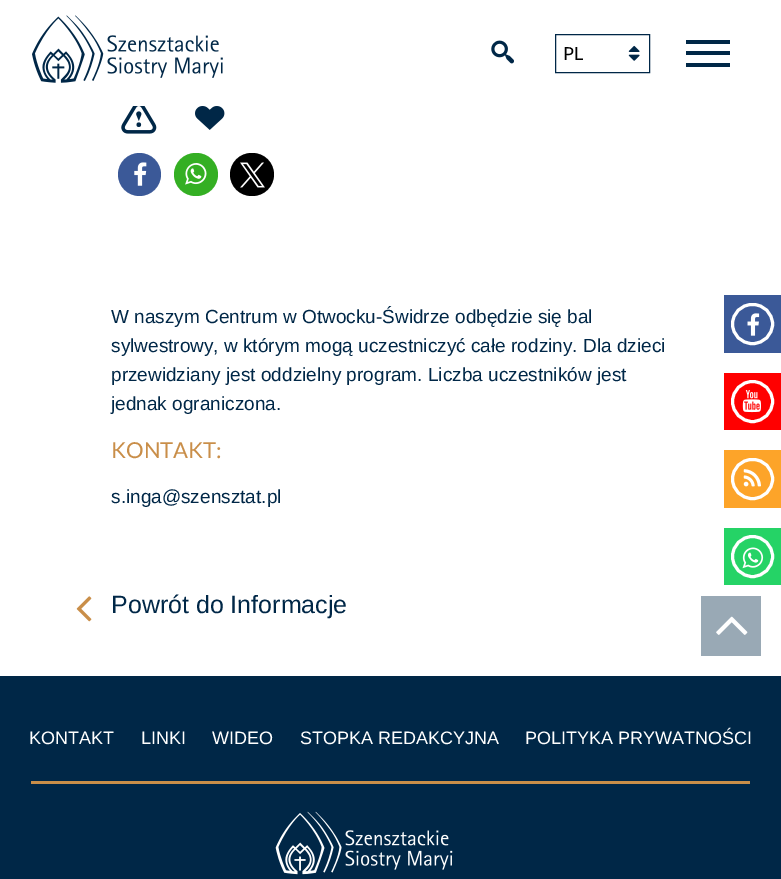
%!PS
<< /PageSize [781 879] >> setpagedevice
/rgb { 3 { 255 div 3 1 roll } repeat setrgbcolor } def
/font { [ exch dup neg 0 0 3 -1 roll 0 0 ] selectfont } def
/circle { newpath 0 360 arc closepath } def
/roundrect { 5 dict begin { /r /h /w /y /x } { exch def } forall
  x r add y moveto x w add y 2 copy h add r arct x w add y h add x 1 index r arct
  x y h add x y r arct x y 2 copy exch w add exch r arct closepath end } def
/picture { 5 dict begin { /h /w /y /x /name } { exch def } forall
  gsave x y translate w h scale
  w h 8 [w 0 0 h 0 0] name (r) file false 3 colorimage grestore end } def
0 879 translate 1 -1 scale
4 setmiterlimit
255 255 255 rgb
0 0 781 879 rectfill
(img/1.rgb) 32 15 191 68 picture
(img/2.rgb) 491 40 23 24 picture
0 39 71 rgb
555.5 34.5 94 38 rectstroke
(img/3.rgb) 628 45 12 16 picture
[
  [686 40 44 4 0 39 71]
  [686 51 44 4 0 39 71]
  [686 63 44 4 0 39 71]
] { aload pop rgb rectfill } forall
(img/4.rgb) 121 106 36 28 picture
(img/5.rgb) 195 106 30 24 picture
59 89 152 rgb
139.5 174.5 21.5 circle fill
(img/6.rgb) 134 162 13 24 picture
52 175 35 rgb
174 153 44 43 21.5 roundrect fill
(img/7.rgb) 185 163 22 22 picture
0 0 0 rgb
230 153 44 43 21.5 roundrect fill
(img/8.rgb) 240 162 25 26 picture
(img/9.rgb) 76 596 16 26 picture
59 89 152 rgb
724 295 57 58 rectfill
255 255 255 rgb
3 setlinewidth
732.5 304.5 40 39 19.5 roundrect stroke
(img/10.rgb) 747 313 13 23 picture
255 0 0 rgb
724 373 57 57 rectfill
255 255 255 rgb
752.5 401.5 20 circle stroke
(img/11.rgb) 742 390 19 23 picture
253 164 41 rgb
724 450 57 58 rectfill
255 255 255 rgb
732.5 459.5 40 39 19.5 roundrect stroke
(img/12.rgb) 743 469 18 18 picture
37 211 102 rgb
724 528 57 57 rectfill
255 255 255 rgb
752.5 556.5 20 circle stroke
(img/13.rgb) 742 547 22 22 picture
0 39 71 rgb
0 676 781 203 rectfill
153 169 181 rgb
701 596 60 60 rectfill
(img/14.rgb) 716 616 32 19 picture
201 142 73 rgb
31 781 719 3 rectfill
(img/15.rgb) 275 811 178 64 picture
/Lato-Regular 18 font
0 0 0 rgb
563 60 moveto (PL) show
/LiberationSans-Regular 19 font
0 39 71 rgb
[
  [(W naszym Centrum w Otwocku-Świdrze odbędzie się bal) 111 323]
  [(sylwestrowy, w którym mogą uczestniczyć całe rodziny. Dla dzieci) 111 352]
  [(przewidziany jest oddzielny program. Liczba uczestników jest) 111 381]
  [(jednak ograniczona.) 111 410]
] { aload pop moveto show } forall
/Lato-Regular 22 font
201 142 73 rgb
111 458 moveto (KONTAKT:) show
/LiberationSans-Regular 19 font
0 39 71 rgb
111 503 moveto (s.inga@szensztat.pl) show
/LiberationSans-Regular 25 font
111 613 moveto (Powrót do Informacje) show
/LiberationSans-Regular 18 font
255 255 255 rgb
[
  [(KONTAKT) 29 744]
  [(LINKI) 141 744]
  [(WIDEO) 212 744]
  [(STOPKA REDAKCYJNA) 300 744]
  [(POLITYKA PRYWATNOŚCI) 525 744]
] { aload pop moveto show } forall
showpage
